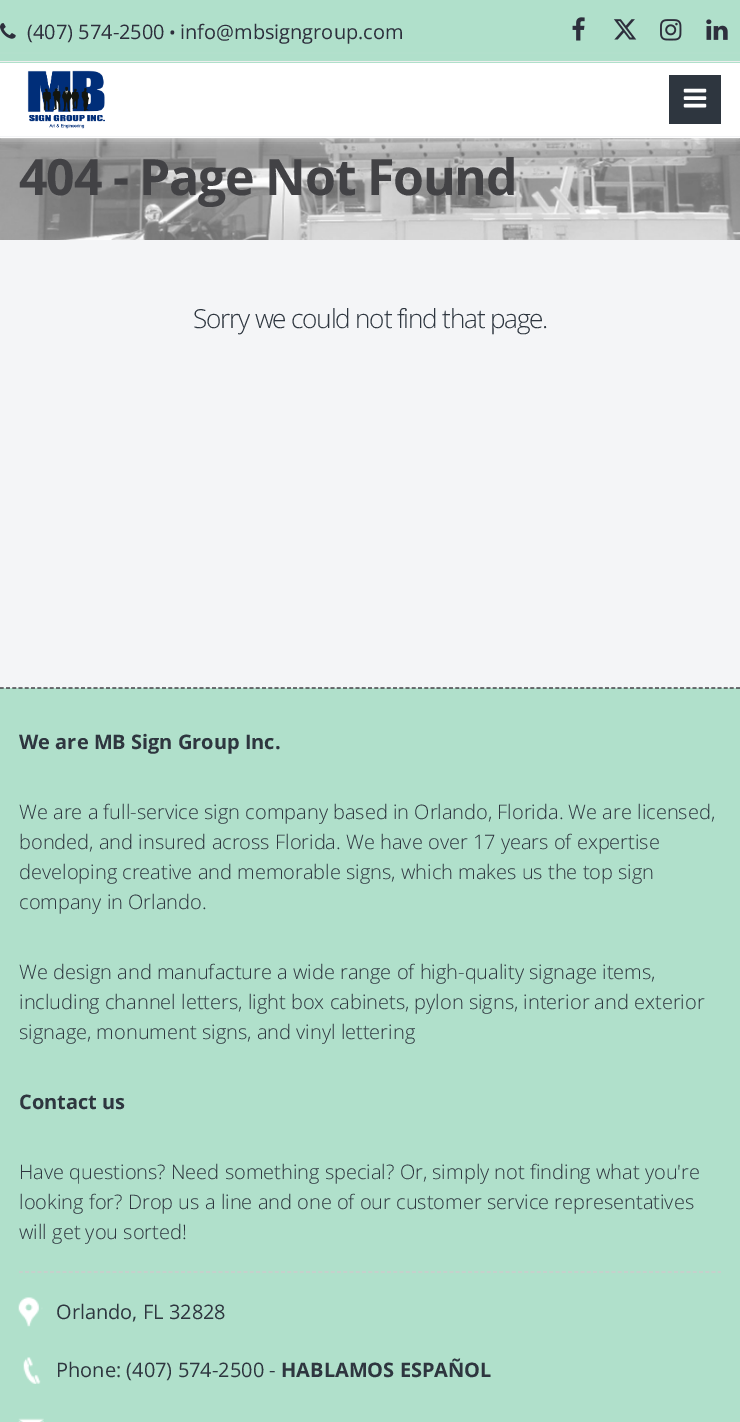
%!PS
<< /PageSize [740 1422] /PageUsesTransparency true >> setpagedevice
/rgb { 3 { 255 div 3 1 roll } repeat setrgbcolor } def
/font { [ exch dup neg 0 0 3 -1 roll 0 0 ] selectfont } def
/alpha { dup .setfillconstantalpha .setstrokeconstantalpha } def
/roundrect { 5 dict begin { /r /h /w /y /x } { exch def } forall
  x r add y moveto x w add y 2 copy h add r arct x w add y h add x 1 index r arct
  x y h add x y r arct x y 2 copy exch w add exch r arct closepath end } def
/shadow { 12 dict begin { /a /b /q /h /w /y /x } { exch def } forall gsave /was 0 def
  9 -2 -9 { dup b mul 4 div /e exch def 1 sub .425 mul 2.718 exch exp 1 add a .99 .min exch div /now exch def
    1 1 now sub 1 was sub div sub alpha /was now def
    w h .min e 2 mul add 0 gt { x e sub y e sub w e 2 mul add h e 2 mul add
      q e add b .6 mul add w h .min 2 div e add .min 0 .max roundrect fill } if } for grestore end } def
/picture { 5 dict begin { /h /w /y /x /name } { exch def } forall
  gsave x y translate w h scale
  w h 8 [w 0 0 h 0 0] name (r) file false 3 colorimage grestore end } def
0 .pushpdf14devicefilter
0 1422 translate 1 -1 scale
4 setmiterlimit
176 224 203 rgb
0 0 740 1422 rectfill
(img/8.rgb) 0 138 740 102 picture
238 238 238 rgb
0 63 740 75 0 5 1 shadow
176 224 203 rgb
0 54 740 9 rectfill
238 238 238 rgb
0 61 740 1 rectfill
(img/1.rgb) 0 23 16 16 picture
(img/2.rgb) 572 17 13 24 picture
(img/3.rgb) 613 19 24 21 picture
(img/4.rgb) 660 19 22 22 picture
(img/5.rgb) 706 19 22 21 picture
255 255 255 rgb
0 63 740 75 rectfill
244 245 247 rgb
0 136 740 1 rectfill
(img/6.rgb) 27 70 78 59 picture
46 54 63 rgb
669 75 52 49 rectfill
(img/7.rgb) 683 88 24 20 picture
244 245 247 rgb
0 240 740 448 rectfill
64 62 68 rgb
1.2 setlinewidth
[3.75 2.49] 0 setdash
0 688 moveto 740 688 lineto stroke
204 204 204 rgb
19 1272 moveto 721 1272 lineto stroke
(img/9.rgb) 18 1297 25 30 picture
(img/10.rgb) 23 1357 18 27 picture
(img/11.rgb) 18 1418 26 4 picture
/OpenSans-Regular 20 font
45 47 60 rgb
27 39 moveto (\(407\) 574-2500) show
/OpenSans-Regular 18 font
169 39 moveto (•) show
/OpenSans-Regular 20 font
180 39 moveto (info@mbsigngroup.com) show
/OpenSans-Bold 50 font
66 66 69 rgb
19 195 moveto -1.25 0 (404 - Page Not Found) ashow
/OpenSans-Light 26.25 font
46 54 63 rgb
193 328 moveto -1.25 0 (Sorry we could not find that page.) ashow
/OpenSans-Bold 20 font
19 749 moveto (We are MB Sign Group Inc.) show
/OpenSans-Light 20 font
[
  [(We are a full-service sign company based in Orlando, Florida. We are licensed,) 19 819]
  [(bonded, and insured across Florida. We have over 17 years of expertise) 19 849]
  [(developing creative and memorable signs, which makes us the top sign) 19 879]
  [(company in Orlando.) 19 909]
  [(We design and manufacture a wide range of high-quality signage items,) 19 979]
  [(including channel letters, light box cabinets, pylon signs, interior and exterior) 19 1009]
  [(signage, monument signs, and vinyl lettering) 19 1039]
] { aload pop moveto show } forall
/OpenSans-Bold 20 font
19 1109 moveto (Contact us) show
/OpenSans-Light 20 font
[
  [(Have questions? Need something special? Or, simply not finding what you're) 19 1179]
  [(looking for? Drop us a line and one of our customer service representatives) 19 1209]
  [(will get you sorted!) 19 1239]
] { aload pop moveto show } forall
/OpenSans-Regular 20 font
56 1319 moveto (Orlando, FL 32828) show
56 1377 moveto (Phone: \(407\) 574-2500 -) show
/OpenSans-Bold 20 font
281 1377 moveto (HABLAMOS ESPAÑOL) show
.poppdf14devicefilter showpage
